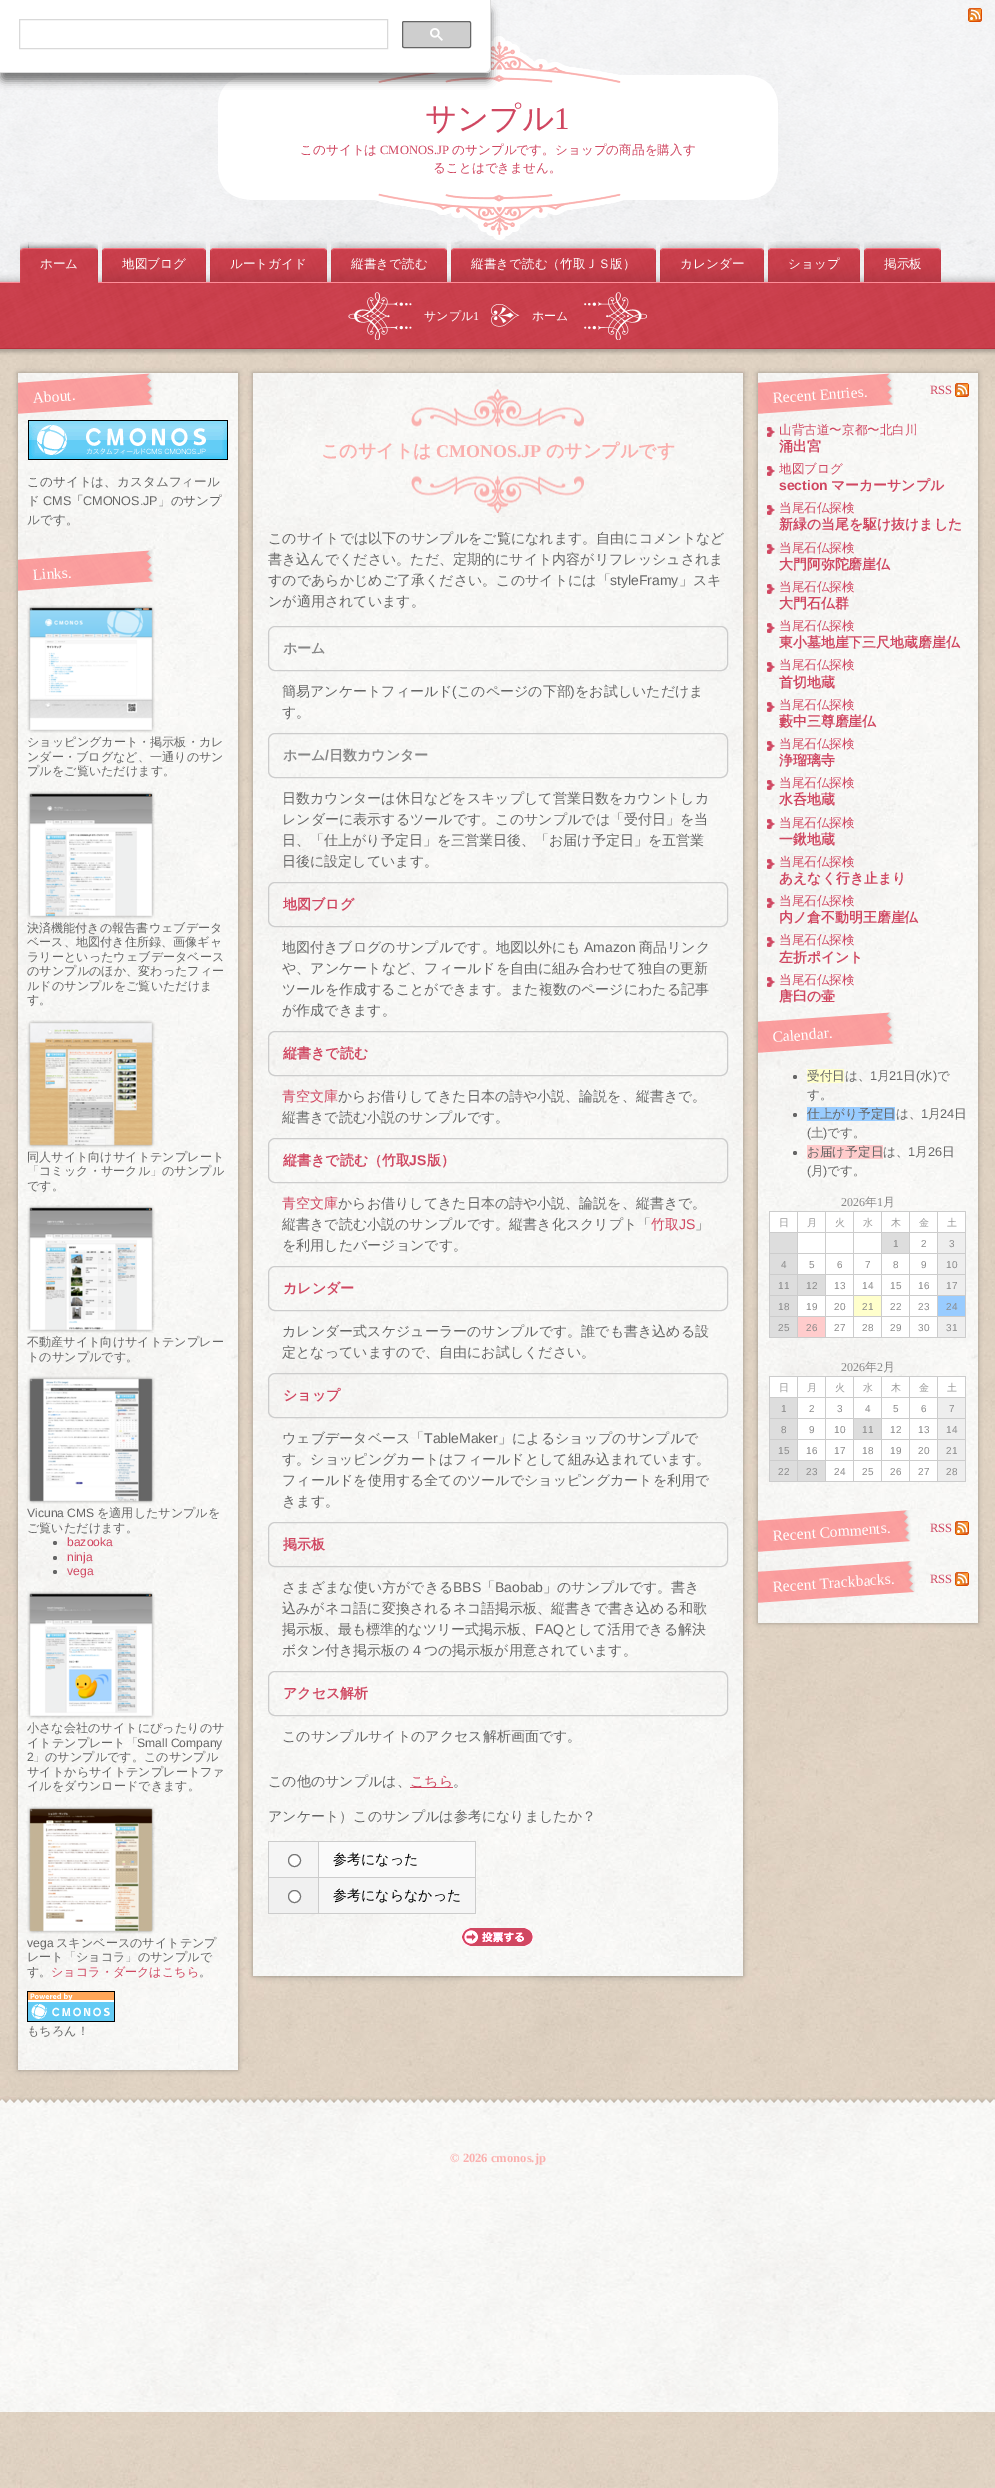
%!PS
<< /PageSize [995 2488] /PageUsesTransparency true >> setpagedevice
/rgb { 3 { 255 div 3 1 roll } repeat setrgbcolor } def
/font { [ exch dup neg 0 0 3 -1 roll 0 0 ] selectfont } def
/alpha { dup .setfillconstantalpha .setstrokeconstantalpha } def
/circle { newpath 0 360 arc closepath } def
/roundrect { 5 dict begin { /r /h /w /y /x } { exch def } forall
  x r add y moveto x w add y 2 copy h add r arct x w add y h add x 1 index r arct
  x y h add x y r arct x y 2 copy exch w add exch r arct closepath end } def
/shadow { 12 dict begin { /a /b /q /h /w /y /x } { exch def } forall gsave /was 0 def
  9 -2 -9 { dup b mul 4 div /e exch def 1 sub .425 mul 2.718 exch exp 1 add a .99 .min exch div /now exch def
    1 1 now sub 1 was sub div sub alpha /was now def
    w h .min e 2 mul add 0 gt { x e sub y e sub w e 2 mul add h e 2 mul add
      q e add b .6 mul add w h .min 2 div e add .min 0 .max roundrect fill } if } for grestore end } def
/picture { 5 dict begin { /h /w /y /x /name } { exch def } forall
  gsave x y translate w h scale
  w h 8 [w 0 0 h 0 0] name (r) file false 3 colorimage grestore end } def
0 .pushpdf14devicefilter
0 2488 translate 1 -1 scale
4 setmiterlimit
255 255 255 rgb
0 0 995 2488 rectfill
(img/1.rgb) 0 0 995 2488 picture
(img/4.rgb) 0 0 995 283 picture
(img/5.rgb) 218 36 560 204 picture
0 0 0 rgb
0 8 491 73 5 4 0.5 shadow
255 255 255 rgb
0 0 moveto 491 0 lineto 491 68 lineto 491 71 489 73 486 73 curveto 0 73 lineto closepath fill
221 221 221 rgb
0 0 moveto 491 0 lineto 491 68 lineto 491 71 489 73 486 73 curveto 0 73 lineto closepath 0 0 moveto 490 0 lineto 490 68 lineto 490 70 488 72 486 72 curveto 0 72 lineto closepath eofill
217 217 217 rgb
19.5 19.5 368 29 rectstroke
206 206 206 rgb
402.5 21.5 68 26 1.5 roundrect gsave fill grestore
102 102 102 rgb
stroke
(img/2.rgb) 430 28 13 13 picture
(img/3.rgb) 968 8 14 14 picture
(img/6.rgb) 20 242 9 41 picture
(img/7.rgb) 28 242 70 41 picture
(img/8.rgb) 102 242 8 40 picture
(img/9.rgb) 110 241 96 41 picture
(img/10.rgb) 210 242 8 40 picture
(img/11.rgb) 218 241 109 41 picture
(img/12.rgb) 331 242 8 40 picture
(img/13.rgb) 339 241 108 41 picture
(img/14.rgb) 451 242 8 40 picture
(img/15.rgb) 459 241 197 41 picture
(img/16.rgb) 660 242 8 40 picture
(img/17.rgb) 668 241 96 41 picture
(img/18.rgb) 768 242 8 40 picture
(img/19.rgb) 776 241 84 41 picture
(img/20.rgb) 864 242 8 40 picture
(img/21.rgb) 872 241 69 41 picture
(img/22.rgb) 0 283 995 72 picture
(img/23.rgb) 348 292 64 48 picture
(img/24.rgb) 491 304 29 23 picture
(img/25.rgb) 584 292 63 48 picture
0 0 0 rgb
18 373 220 1697 0 2.5 0.3 shadow
(img/26.rgb) 18 373 220 1697 picture
(img/27.rgb) 18 373 136 41 picture
(img/28.rgb) 28 420 200 40 picture
(img/29.rgb) 18 550 136 41 picture
(img/30.rgb) 27 605 128 128 picture
(img/31.rgb) 27 791 128 128 picture
(img/32.rgb) 27 1020 128 128 picture
(img/33.rgb) 27 1205 128 128 picture
(img/34.rgb) 27 1376 128 128 picture
102 102 102 rgb
55 1543 2 circle fill
55 1558 2 circle fill
55 1572 2 circle fill
(img/35.rgb) 27 1591 128 128 picture
(img/36.rgb) 27 1806 128 128 picture
(img/37.rgb) 27 1991 88 31 picture
0 0 0 rgb
253 373 490 1603 0 2.5 0.3 shadow
265 1960 196 10 0 6 0.4 shadow
535 1960 196 10 0 6 0.4 shadow
(img/38.rgb) 253 373 490 1603 picture
(img/39.rgb) 411 389 173 124 picture
204 204 204 rgb
268.5 626.5 459 44 6.5 roundrect stroke
268.5 733.5 459 44 6.5 roundrect stroke
268.5 882.5 459 44 6.5 roundrect stroke
268.5 1031.5 459 44 6.5 roundrect stroke
268.5 1138.5 459 44 6.5 roundrect stroke
268.5 1266.5 459 44 6.5 roundrect stroke
268.5 1373.5 459 44 6.5 roundrect stroke
268.5 1522.5 459 44 6.5 roundrect stroke
268.5 1671.5 459 44 6.5 roundrect stroke
[
  [410 1787 43 1 208 71 97]
  [268 1841 208 1 204 204 204]
  [475 1841 1 73 204 204 204]
  [268 1913 208 1 204 204 204]
  [268 1841 1 73 204 204 204]
  [269 1842 49 35 245 245 245]
] { aload pop rgb rectfill } forall
255 255 255 rgb
294.5 1860.5 6 circle gsave fill grestore
118 118 118 rgb
stroke
[
  [319 1842 156 35 250 250 250]
  [318 1877 158 1 204 204 204]
  [318 1877 1 37 204 204 204]
  [268 1877 51 1 204 204 204]
  [318 1841 1 37 204 204 204]
  [269 1878 49 35 240 240 240]
] { aload pop rgb rectfill } forall
255 255 255 rgb
294.5 1896.5 6 circle gsave fill grestore
118 118 118 rgb
stroke
245 245 245 rgb
319 1878 156 35 rectfill
(img/40.rgb) 462 1928 71 18 picture
0 0 0 rgb
758 373 220 1250 0 2.5 0.3 shadow
(img/41.rgb) 758 373 220 1250 picture
(img/42.rgb) 758 373 136 41 picture
(img/43.rgb) 955 383 14 14 picture
(img/44.rgb) 767 427 8 10 picture
(img/45.rgb) 767 466 8 10 picture
(img/46.rgb) 767 505 8 10 picture
(img/47.rgb) 767 544 8 10 picture
(img/48.rgb) 767 584 8 10 picture
(img/49.rgb) 767 623 8 10 picture
(img/50.rgb) 767 662 8 10 picture
(img/51.rgb) 767 702 8 10 picture
(img/52.rgb) 767 741 8 10 picture
(img/53.rgb) 767 780 8 10 picture
(img/54.rgb) 767 819 8 10 picture
(img/55.rgb) 767 859 8 10 picture
(img/56.rgb) 767 898 8 10 picture
(img/57.rgb) 767 937 8 10 picture
(img/58.rgb) 767 977 8 10 picture
(img/59.rgb) 758 1012 136 41 picture
102 102 102 rgb
795 1077 2 circle fill
255 255 204 rgb
807 1069 37 14 rectfill
102 102 102 rgb
795 1115 2 circle fill
153 204 255 rgb
807 1107 88 14 rectfill
102 102 102 rgb
795 1153 2 circle fill
[
  [807 1145 76 14 255 204 204]
  [770 1212 27 20 255 255 255]
  [937 1211 29 1 204 204 204]
  [937 1232 29 1 204 204 204]
  [937 1253 29 1 204 204 204]
  [937 1274 29 1 204 204 204]
  [937 1295 29 1 204 204 204]
  [937 1316 29 1 204 204 204]
  [965 1316 1 22 204 204 204]
  [937 1337 29 1 204 204 204]
  [937 1316 1 22 204 204 204]
  [909 1316 29 1 204 204 204]
  [937 1295 1 22 204 204 204]
  [909 1295 29 1 204 204 204]
  [937 1274 1 22 204 204 204]
  [909 1274 29 1 204 204 204]
  [937 1253 1 22 204 204 204]
  [909 1253 29 1 204 204 204]
  [937 1232 1 22 204 204 204]
  [909 1232 29 1 204 204 204]
  [937 1211 1 22 204 204 204]
  [909 1211 29 1 204 204 204]
  [909 1337 29 1 204 204 204]
  [909 1316 1 22 204 204 204]
  [881 1316 29 1 204 204 204]
  [909 1295 1 22 204 204 204]
  [881 1295 29 1 204 204 204]
  [909 1274 1 22 204 204 204]
  [881 1274 29 1 204 204 204]
  [909 1253 1 22 204 204 204]
  [881 1253 29 1 204 204 204]
  [909 1232 1 22 204 204 204]
  [881 1232 29 1 204 204 204]
  [909 1211 1 22 204 204 204]
  [881 1211 29 1 204 204 204]
  [881 1337 29 1 204 204 204]
  [881 1316 1 22 204 204 204]
  [853 1316 29 1 204 204 204]
  [881 1295 1 22 204 204 204]
  [853 1295 29 1 204 204 204]
  [881 1274 1 22 204 204 204]
  [853 1274 29 1 204 204 204]
  [881 1253 1 22 204 204 204]
  [853 1253 29 1 204 204 204]
  [881 1232 1 22 204 204 204]
  [853 1232 29 1 204 204 204]
  [881 1211 1 22 204 204 204]
  [853 1211 29 1 204 204 204]
  [853 1337 29 1 204 204 204]
  [853 1316 1 22 204 204 204]
  [825 1316 29 1 204 204 204]
  [853 1295 1 22 204 204 204]
  [825 1295 29 1 204 204 204]
  [853 1274 1 22 204 204 204]
  [825 1274 29 1 204 204 204]
  [853 1253 1 22 204 204 204]
  [825 1253 29 1 204 204 204]
  [853 1232 1 22 204 204 204]
  [825 1232 29 1 204 204 204]
  [853 1211 1 22 204 204 204]
  [825 1211 29 1 204 204 204]
  [825 1337 29 1 204 204 204]
  [825 1316 1 22 204 204 204]
  [797 1316 29 1 204 204 204]
  [825 1295 1 22 204 204 204]
  [797 1295 29 1 204 204 204]
  [825 1274 1 22 204 204 204]
  [797 1274 29 1 204 204 204]
  [825 1253 1 22 204 204 204]
  [797 1253 29 1 204 204 204]
  [825 1232 1 22 204 204 204]
  [797 1232 29 1 204 204 204]
  [825 1211 1 22 204 204 204]
  [797 1211 29 1 204 204 204]
  [797 1337 29 1 204 204 204]
  [797 1316 1 22 204 204 204]
  [769 1316 29 1 204 204 204]
  [797 1295 1 22 204 204 204]
  [769 1295 29 1 204 204 204]
  [797 1274 1 22 204 204 204]
  [769 1274 29 1 204 204 204]
  [797 1253 1 22 204 204 204]
  [769 1253 29 1 204 204 204]
  [797 1232 1 22 204 204 204]
  [769 1232 29 1 204 204 204]
  [797 1211 1 22 204 204 204]
  [769 1211 29 1 204 204 204]
  [769 1337 29 1 204 204 204]
  [769 1316 1 22 204 204 204]
  [769 1295 1 22 204 204 204]
  [769 1274 1 22 204 204 204]
  [769 1253 1 22 204 204 204]
  [769 1232 1 22 204 204 204]
  [769 1211 1 22 204 204 204]
  [798 1212 27 20 255 255 255]
  [826 1212 27 20 255 255 255]
  [854 1212 27 20 255 255 255]
  [882 1212 27 20 255 255 255]
  [910 1212 27 20 255 255 255]
  [938 1212 27 20 255 255 255]
  [965 1295 1 22 204 204 204]
  [965 1274 1 22 204 204 204]
  [965 1253 1 22 204 204 204]
  [965 1232 1 22 204 204 204]
  [965 1211 1 22 204 204 204]
  [770 1233 27 20 221 221 221]
  [798 1233 27 20 255 255 255]
  [826 1233 27 20 255 255 255]
  [854 1233 27 20 255 255 255]
  [882 1233 27 20 221 221 221]
  [910 1233 27 20 255 255 255]
  [938 1233 27 20 238 238 238]
  [770 1254 27 20 221 221 221]
  [798 1254 27 20 255 255 255]
  [826 1254 27 20 255 255 255]
  [854 1254 27 20 255 255 255]
  [882 1254 27 20 255 255 255]
  [910 1254 27 20 255 255 255]
  [938 1254 27 20 238 238 238]
  [770 1275 27 20 221 221 221]
  [798 1275 27 20 221 221 221]
  [826 1275 27 20 255 255 255]
  [854 1275 27 20 255 255 255]
  [882 1275 27 20 255 255 255]
  [910 1275 27 20 255 255 255]
  [938 1275 27 20 238 238 238]
  [770 1296 27 20 221 221 221]
  [798 1296 27 20 255 255 255]
  [826 1296 27 20 255 255 255]
  [854 1296 27 20 255 255 204]
  [882 1296 27 20 255 255 255]
  [910 1296 27 20 255 255 255]
  [938 1296 27 20 153 204 255]
  [770 1317 27 20 221 221 221]
  [798 1317 27 20 255 204 204]
  [826 1317 27 20 255 255 255]
  [854 1317 27 20 255 255 255]
  [882 1317 27 20 255 255 255]
  [910 1317 27 20 255 255 255]
  [938 1317 27 20 238 238 238]
  [770 1377 27 20 255 255 255]
  [937 1376 29 1 204 204 204]
  [937 1397 29 1 204 204 204]
  [937 1418 29 1 204 204 204]
  [937 1439 29 1 204 204 204]
  [937 1460 29 1 204 204 204]
  [965 1460 1 22 204 204 204]
  [937 1481 29 1 204 204 204]
  [937 1460 1 22 204 204 204]
  [909 1460 29 1 204 204 204]
  [937 1439 1 22 204 204 204]
  [909 1439 29 1 204 204 204]
  [937 1418 1 22 204 204 204]
  [909 1418 29 1 204 204 204]
  [937 1397 1 22 204 204 204]
  [909 1397 29 1 204 204 204]
  [937 1376 1 22 204 204 204]
  [909 1376 29 1 204 204 204]
  [909 1481 29 1 204 204 204]
  [909 1460 1 22 204 204 204]
  [881 1460 29 1 204 204 204]
  [909 1439 1 22 204 204 204]
  [881 1439 29 1 204 204 204]
  [909 1418 1 22 204 204 204]
  [881 1418 29 1 204 204 204]
  [909 1397 1 22 204 204 204]
  [881 1397 29 1 204 204 204]
  [909 1376 1 22 204 204 204]
  [881 1376 29 1 204 204 204]
  [881 1481 29 1 204 204 204]
  [881 1460 1 22 204 204 204]
  [853 1460 29 1 204 204 204]
  [881 1439 1 22 204 204 204]
  [853 1439 29 1 204 204 204]
  [881 1418 1 22 204 204 204]
  [853 1418 29 1 204 204 204]
  [881 1397 1 22 204 204 204]
  [853 1397 29 1 204 204 204]
  [881 1376 1 22 204 204 204]
  [853 1376 29 1 204 204 204]
  [853 1481 29 1 204 204 204]
  [853 1460 1 22 204 204 204]
  [825 1460 29 1 204 204 204]
  [853 1439 1 22 204 204 204]
  [825 1439 29 1 204 204 204]
  [853 1418 1 22 204 204 204]
  [825 1418 29 1 204 204 204]
  [853 1397 1 22 204 204 204]
  [825 1397 29 1 204 204 204]
  [853 1376 1 22 204 204 204]
  [825 1376 29 1 204 204 204]
  [825 1481 29 1 204 204 204]
  [825 1460 1 22 204 204 204]
  [797 1460 29 1 204 204 204]
  [825 1439 1 22 204 204 204]
  [797 1439 29 1 204 204 204]
  [825 1418 1 22 204 204 204]
  [797 1418 29 1 204 204 204]
  [825 1397 1 22 204 204 204]
  [797 1397 29 1 204 204 204]
  [825 1376 1 22 204 204 204]
  [797 1376 29 1 204 204 204]
  [797 1481 29 1 204 204 204]
  [797 1460 1 22 204 204 204]
  [769 1460 29 1 204 204 204]
  [797 1439 1 22 204 204 204]
  [769 1439 29 1 204 204 204]
  [797 1418 1 22 204 204 204]
  [769 1418 29 1 204 204 204]
  [797 1397 1 22 204 204 204]
  [769 1397 29 1 204 204 204]
  [797 1376 1 22 204 204 204]
  [769 1376 29 1 204 204 204]
  [769 1481 29 1 204 204 204]
  [769 1460 1 22 204 204 204]
  [769 1439 1 22 204 204 204]
  [769 1418 1 22 204 204 204]
  [769 1397 1 22 204 204 204]
  [769 1376 1 22 204 204 204]
  [798 1377 27 20 255 255 255]
  [826 1377 27 20 255 255 255]
  [854 1377 27 20 255 255 255]
  [882 1377 27 20 255 255 255]
  [910 1377 27 20 255 255 255]
  [938 1377 27 20 255 255 255]
  [965 1439 1 22 204 204 204]
  [965 1418 1 22 204 204 204]
  [965 1397 1 22 204 204 204]
  [965 1376 1 22 204 204 204]
  [770 1398 27 20 221 221 221]
  [798 1398 27 20 255 255 255]
  [826 1398 27 20 255 255 255]
  [854 1398 27 20 255 255 255]
  [882 1398 27 20 255 255 255]
  [910 1398 27 20 255 255 255]
  [938 1398 27 20 238 238 238]
  [770 1419 27 20 221 221 221]
  [798 1419 27 20 255 255 255]
  [826 1419 27 20 255 255 255]
  [854 1419 27 20 221 221 221]
  [882 1419 27 20 255 255 255]
  [910 1419 27 20 255 255 255]
  [938 1419 27 20 238 238 238]
  [770 1440 27 20 221 221 221]
  [798 1440 27 20 255 255 255]
  [826 1440 27 20 255 255 255]
  [854 1440 27 20 255 255 255]
  [882 1440 27 20 255 255 255]
  [910 1440 27 20 255 255 255]
  [938 1440 27 20 238 238 238]
  [770 1461 27 20 221 221 221]
  [798 1461 27 20 221 221 221]
  [826 1461 27 20 255 255 255]
  [854 1461 27 20 255 255 255]
  [882 1461 27 20 255 255 255]
  [910 1461 27 20 255 255 255]
  [938 1461 27 20 238 238 238]
] { aload pop rgb rectfill } forall
(img/60.rgb) 758 1510 153 42 picture
(img/61.rgb) 955 1521 14 14 picture
(img/62.rgb) 758 1561 157 42 picture
(img/63.rgb) 955 1572 14 14 picture
(img/64.rgb) 0 2097 995 315 picture
/WenQuanYiZenHei-Medium 31.5 font
208 71 97 rgb
425 129 moveto (サンプル) show
/LiberationSerif-Regular 31.5 font
554 129 moveto (1) show
/WenQuanYiZenHei-Medium 12.6 font
300 154 moveto (このサイトは) show
/LiberationSerif-Regular 12.6 font
380 154 moveto (CMONOS.JP) show
/WenQuanYiZenHei-Medium 12.6 font
452 154 moveto (のサンプルです。ショップの商品を購入す) show
433 172 moveto (ることはできません。) show
255 255 255 rgb
[
  [(ホーム) 40 268]
  [(地図ブログ) 122 268]
  [(ルートガイド) 230 268]
  [(縦書きで読む) 351 268]
  [(縦書きで読む（竹取ＪＳ版）) 471 268]
  [(カレンダー) 680 268]
  [(ショップ) 788 268]
  [(掲示板) 884 268]
] { aload pop moveto show } forall
/WenQuanYiZenHei-Medium 12 font
424 320 moveto (サンプル) show
/LiberationSerif-Regular 12 font
473 320 moveto (1) show
/WenQuanYiZenHei-Medium 12 font
532 320 moveto (ホーム) show
/LiberationSerif-Regular 15.5 font
gsave 33 403 translate -4 rotate 0 0 moveto (About.) show grestore
/WenQuanYiZenHei-Medium 12.6 font
102 102 102 rgb
27 486 moveto (このサイトは、カスタムフィール) show
27 505 moveto (ド) show
/LiberationSans-Regular 12.6 font
43 505 moveto (CMS) show
/WenQuanYiZenHei-Medium 12.6 font
71 505 moveto (「) show
/LiberationSans-Regular 12.6 font
83 505 moveto (CMONOS.JP) show
/WenQuanYiZenHei-Medium 12.6 font
158 505 moveto (」のサンプ) show
27 524 moveto (ルです。) show
/LiberationSerif-Regular 15.5 font
255 255 255 rgb
gsave 33 580 translate -4 rotate 0 0 moveto (Links.) show grestore
/WenQuanYiZenHei-Medium 12.1 font
102 102 102 rgb
[
  [(ショッピングカート・掲示板・カレ) 27 746]
  [(ンダー・ブログなど、一通りのサン) 27 761]
  [(プルをご覧いただけます。) 27 775]
  [(決済機能付きの報告書ウェブデータ) 27 932]
  [(ベース、地図付き住所録、画像ギャ) 27 946]
  [(ラリーといったウェブデータベース) 27 961]
  [(のサンプルのほか、変わったフィー) 27 975]
  [(ルドのサンプルをご覧いただけま) 27 990]
  [(す。) 27 1004]
  [(同人サイト向けサイトテンプレート) 27 1161]
  [(「コミック・サークル」のサンプル) 27 1175]
  [(です。) 27 1190]
  [(不動産サイト向けサイトテンプレー) 27 1346]
  [(トのサンプルです。) 27 1361]
] { aload pop moveto show } forall
/LiberationSans-Regular 12.1 font
27 1517 moveto (Vicuna CMS) show
/WenQuanYiZenHei-Medium 12.1 font
97 1517 moveto (を適用したサンプルを) show
27 1532 moveto (ご覧いただけます。) show
/LiberationSans-Regular 12.1 font
208 71 97 rgb
[
  [(bazooka) 67 1546]
  [(ninja) 67 1561]
  [(vega) 67 1575]
] { aload pop moveto show } forall
/WenQuanYiZenHei-Medium 12.1 font
102 102 102 rgb
27 1732 moveto (小さな会社のサイトにぴったりのサ) show
27 1747 moveto (イトテンプレート「) show
/LiberationSans-Regular 12.1 font
137 1747 moveto (Small Company) show
27 1761 moveto (2) show
/WenQuanYiZenHei-Medium 12.1 font
[
  [(」のサンプルです。このサンプル) 33 1761]
  [(サイトからサイトテンプレートファ) 27 1776]
  [(イルをダウンロードできます。) 27 1790]
] { aload pop moveto show } forall
/LiberationSans-Regular 12.1 font
27 1947 moveto (vega) show
/WenQuanYiZenHei-Medium 12.1 font
[
  [(スキンベースのサイトテンプ) 56 1947]
  [(レート「ショコラ」のサンプルで) 27 1961]
  [(す。) 27 1976]
] { aload pop moveto show } forall
208 71 97 rgb
51 1976 moveto (ショコラ・ダークはこちら) show
102 102 102 rgb
199 1976 moveto (。) show
27 2035 moveto (もちろん！) show
/WenQuanYiZenHei-Bold 18 font
250 175 173 rgb
321 457 moveto (このサイトは) show
/LiberationSerif-Bold 18 font
436 457 moveto (CMONOS.JP) show
/WenQuanYiZenHei-Bold 18 font
546 457 moveto (のサンプルです) show
/WenQuanYiZenHei-Medium 14 font
102 102 102 rgb
[
  [(このサイトでは以下のサンプルをご覧になれます。自由にコメントなど) 268 543]
  [(書き込んでください。ただ、定期的にサイト内容がリフレッシュされま) 268 564]
  [(すのであらかじめご了承ください。このサイトには「) 268 585]
] { aload pop moveto show } forall
/LiberationSans-Regular 14 font
610 585 moveto (styleFramy) show
/WenQuanYiZenHei-Medium 14 font
679 585 moveto (」スキ) show
268 606 moveto (ンが適用されています。) show
/WenQuanYiZenHei-Bold 14 font
136 136 136 rgb
283 653 moveto (ホーム) show
/WenQuanYiZenHei-Medium 14 font
102 102 102 rgb
282 696 moveto (簡易アンケートフィールド) show
/LiberationSans-Regular 14 font
452 696 moveto (\() show
/WenQuanYiZenHei-Medium 14 font
457 696 moveto (このページの下部) show
/LiberationSans-Regular 14 font
570 696 moveto (\)) show
/WenQuanYiZenHei-Medium 14 font
575 696 moveto (をお試しいただけま) show
282 717 moveto (す。) show
/WenQuanYiZenHei-Bold 14 font
136 136 136 rgb
283 760 moveto (ホーム) show
/LiberationSans-Bold 14 font
325 760 moveto (/) show
/WenQuanYiZenHei-Bold 14 font
329 760 moveto (日数カウンター) show
/WenQuanYiZenHei-Medium 14 font
102 102 102 rgb
[
  [(日数カウンターは休日などをスキップして営業日数をカウントしカ) 282 803]
  [(レンダーに表示するツールです。このサンプルでは「受付日」を当) 282 824]
  [(日、「仕上がり予定日」を三営業日後、「お届け予定日」を五営業) 282 845]
  [(日後に設定しています。) 282 866]
] { aload pop moveto show } forall
/WenQuanYiZenHei-Bold 14 font
208 71 97 rgb
283 909 moveto (地図ブログ) show
/WenQuanYiZenHei-Medium 14 font
102 102 102 rgb
282 952 moveto (地図付きブログのサンプルです。地図以外にも) show
/LiberationSans-Regular 14 font
584 952 moveto (Amazon) show
/WenQuanYiZenHei-Medium 14 font
[
  [(商品リンク) 639 952]
  [(や、アンケートなど、フィールドを自由に組み合わせて独自の更新) 282 973]
  [(ツールを作成することができます。また複数のページにわたる記事) 282 994]
  [(が作成できます。) 282 1015]
] { aload pop moveto show } forall
/WenQuanYiZenHei-Bold 14 font
208 71 97 rgb
283 1058 moveto (縦書きで読む) show
/WenQuanYiZenHei-Medium 14 font
282 1101 moveto (青空文庫) show
102 102 102 rgb
338 1101 moveto (からお借りしてきた日本の詩や小説、論説を、縦書きで。) show
282 1122 moveto (縦書きで読む小説のサンプルです。) show
/WenQuanYiZenHei-Bold 14 font
208 71 97 rgb
283 1165 moveto (縦書きで読む（竹取) show
/LiberationSans-Bold 14 font
409 1165 moveto (JS) show
/WenQuanYiZenHei-Bold 14 font
427 1165 moveto (版）) show
/WenQuanYiZenHei-Medium 14 font
282 1208 moveto (青空文庫) show
102 102 102 rgb
338 1208 moveto (からお借りしてきた日本の詩や小説、論説を、縦書きで。) show
282 1229 moveto (縦書きで読む小説のサンプルです。縦書き化スクリプト「) show
208 71 97 rgb
651 1229 moveto (竹取) show
/LiberationSans-Regular 14 font
679 1229 moveto (JS) show
/WenQuanYiZenHei-Medium 14 font
102 102 102 rgb
695 1229 moveto (」) show
282 1250 moveto (を利用したバージョンです。) show
/WenQuanYiZenHei-Bold 14 font
208 71 97 rgb
283 1293 moveto (カレンダー) show
/WenQuanYiZenHei-Medium 14 font
102 102 102 rgb
282 1336 moveto (カレンダー式スケジューラーのサンプルです。誰でも書き込める設) show
282 1357 moveto (定となっていますので、自由にお試しください。) show
/WenQuanYiZenHei-Bold 14 font
208 71 97 rgb
283 1400 moveto (ショップ) show
/WenQuanYiZenHei-Medium 14 font
102 102 102 rgb
282 1443 moveto (ウェブデータベース「) show
/LiberationSans-Regular 14 font
424 1443 moveto (TableMaker) show
/WenQuanYiZenHei-Medium 14 font
[
  [(」によるショップのサンプルで) 498 1443]
  [(す。ショッピングカートはフィールドとして組み込まれています。) 282 1464]
  [(フィールドを使用する全てのツールでショッピングカートを利用で) 282 1485]
  [(きます。) 282 1506]
] { aload pop moveto show } forall
/WenQuanYiZenHei-Bold 14 font
208 71 97 rgb
283 1549 moveto (掲示板) show
/WenQuanYiZenHei-Medium 14 font
102 102 102 rgb
282 1592 moveto (さまざまな使い方ができる) show
/LiberationSans-Regular 14 font
453 1592 moveto (BBS) show
/WenQuanYiZenHei-Medium 14 font
481 1592 moveto (「) show
/LiberationSans-Regular 14 font
495 1592 moveto (Baobab) show
/WenQuanYiZenHei-Medium 14 font
[
  [(」のサンプルです。書き) 543 1592]
  [(込みがネコ語に変換されるネコ語掲示板、縦書きで書き込める和歌) 282 1613]
  [(掲示板、最も標準的なツリー式掲示板、) 282 1634]
] { aload pop moveto show } forall
/LiberationSans-Regular 14 font
535 1634 moveto (FAQ) show
/WenQuanYiZenHei-Medium 14 font
564 1634 moveto (として活用できる解決) show
282 1655 moveto (ボタン付き掲示板の４つの掲示板が用意されています。) show
/WenQuanYiZenHei-Bold 14 font
208 71 97 rgb
283 1698 moveto (アクセス解析) show
/WenQuanYiZenHei-Medium 14 font
102 102 102 rgb
282 1741 moveto (このサンプルサイトのアクセス解析画面です。) show
268 1786 moveto (この他のサンプルは、) show
208 71 97 rgb
410 1786 moveto (こちら) show
102 102 102 rgb
453 1786 moveto (。) show
268 1821 moveto (アンケート）このサンプルは参考になりましたか？) show
0 0 0 rgb
333 1864 moveto (参考になった) show
333 1900 moveto (参考にならなかった) show
/LiberationSerif-Regular 15.5 font
255 255 255 rgb
gsave 773 403 translate -4 rotate 0 0 moveto (Recent Entries.) show grestore
/LiberationSerif-Regular 12.6 font
208 71 97 rgb
930 394 moveto (RSS) show
/WenQuanYiZenHei-Medium 12.6 font
779 434 moveto (山背古道〜京都〜北白川) show
/WenQuanYiZenHei-Bold 13.9 font
779 451 moveto (涌出宮) show
/WenQuanYiZenHei-Medium 12.6 font
779 473 moveto (地図ブログ) show
/LiberationSans-Bold 13.9 font
779 490 moveto (section) show
/WenQuanYiZenHei-Bold 13.9 font
831 490 moveto (マーカーサンプル) show
/WenQuanYiZenHei-Medium 12.6 font
779 512 moveto (当尾石仏探検) show
/WenQuanYiZenHei-Bold 13.9 font
779 529 moveto (新緑の当尾を駆け抜けました) show
/WenQuanYiZenHei-Medium 12.6 font
779 552 moveto (当尾石仏探検) show
/WenQuanYiZenHei-Bold 13.9 font
779 569 moveto (大門阿弥陀磨崖仏) show
/WenQuanYiZenHei-Medium 12.6 font
779 591 moveto (当尾石仏探検) show
/WenQuanYiZenHei-Bold 13.9 font
779 608 moveto (大門石仏群) show
/WenQuanYiZenHei-Medium 12.6 font
779 630 moveto (当尾石仏探検) show
/WenQuanYiZenHei-Bold 13.9 font
779 647 moveto (東小墓地崖下三尺地蔵磨崖仏) show
/WenQuanYiZenHei-Medium 12.6 font
779 669 moveto (当尾石仏探検) show
/WenQuanYiZenHei-Bold 13.9 font
779 687 moveto (首切地蔵) show
/WenQuanYiZenHei-Medium 12.6 font
779 709 moveto (当尾石仏探検) show
/WenQuanYiZenHei-Bold 13.9 font
779 726 moveto (藪中三尊磨崖仏) show
/WenQuanYiZenHei-Medium 12.6 font
779 748 moveto (当尾石仏探検) show
/WenQuanYiZenHei-Bold 13.9 font
779 765 moveto (浄瑠璃寺) show
/WenQuanYiZenHei-Medium 12.6 font
779 787 moveto (当尾石仏探検) show
/WenQuanYiZenHei-Bold 13.9 font
779 804 moveto (水呑地蔵) show
/WenQuanYiZenHei-Medium 12.6 font
779 827 moveto (当尾石仏探検) show
/WenQuanYiZenHei-Bold 13.9 font
779 844 moveto (一鍬地蔵) show
/WenQuanYiZenHei-Medium 12.6 font
779 866 moveto (当尾石仏探検) show
/WenQuanYiZenHei-Bold 13.9 font
779 883 moveto (あえなく行き止まり) show
/WenQuanYiZenHei-Medium 12.6 font
779 905 moveto (当尾石仏探検) show
/WenQuanYiZenHei-Bold 13.9 font
779 922 moveto (内ノ倉不動明王磨崖仏) show
/WenQuanYiZenHei-Medium 12.6 font
779 944 moveto (当尾石仏探検) show
/WenQuanYiZenHei-Bold 13.9 font
779 962 moveto (左折ポイント) show
/WenQuanYiZenHei-Medium 12.6 font
779 984 moveto (当尾石仏探検) show
/WenQuanYiZenHei-Bold 13.9 font
779 1001 moveto (唐臼の壷) show
/LiberationSerif-Regular 15.5 font
255 255 255 rgb
gsave 773 1042 translate -4 rotate 0 0 moveto (Calendar.) show grestore
/WenQuanYiZenHei-Medium 12.6 font
102 102 102 rgb
807 1080 moveto (受付日は、) show
/LiberationSans-Regular 12.6 font
870 1080 moveto (1) show
/WenQuanYiZenHei-Medium 12.6 font
877 1080 moveto (月) show
/LiberationSans-Regular 12.6 font
889 1080 moveto (21) show
/WenQuanYiZenHei-Medium 12.6 font
903 1080 moveto (日) show
/LiberationSans-Regular 12.6 font
916 1080 moveto (\() show
/WenQuanYiZenHei-Medium 12.6 font
920 1080 moveto (水) show
/LiberationSans-Regular 12.6 font
933 1080 moveto (\)) show
/WenQuanYiZenHei-Medium 12.6 font
[
  [(で) 937 1080]
  [(す。) 807 1099]
  [(仕上がり予定日は、) 807 1118]
] { aload pop moveto show } forall
/LiberationSans-Regular 12.6 font
921 1118 moveto (1) show
/WenQuanYiZenHei-Medium 12.6 font
928 1118 moveto (月) show
/LiberationSans-Regular 12.6 font
940 1118 moveto (24) show
/WenQuanYiZenHei-Medium 12.6 font
954 1118 moveto (日) show
/LiberationSans-Regular 12.6 font
807 1137 moveto (\() show
/WenQuanYiZenHei-Medium 12.6 font
811 1137 moveto (土) show
/LiberationSans-Regular 12.6 font
823 1137 moveto (\)) show
/WenQuanYiZenHei-Medium 12.6 font
827 1137 moveto (です。) show
807 1156 moveto (お届け予定日は、) show
/LiberationSans-Regular 12.6 font
908 1156 moveto (1) show
/WenQuanYiZenHei-Medium 12.6 font
915 1156 moveto (月) show
/LiberationSans-Regular 12.6 font
928 1156 moveto (26) show
/WenQuanYiZenHei-Medium 12.6 font
942 1156 moveto (日) show
/LiberationSans-Regular 12.6 font
807 1175 moveto (\() show
/WenQuanYiZenHei-Medium 12.6 font
811 1175 moveto (月) show
/LiberationSans-Regular 12.6 font
823 1175 moveto (\)) show
/WenQuanYiZenHei-Medium 12.6 font
827 1175 moveto (です。) show
/LiberationSerif-Regular 12 font
136 136 136 rgb
841 1206 moveto (2026) show
/WenQuanYiZenHei-Medium 12 font
865 1206 moveto (年) show
/LiberationSerif-Regular 12 font
877 1206 moveto (1) show
/WenQuanYiZenHei-Medium 12 font
883 1206 moveto (月) show
/WenQuanYiZenHei-Medium 10 font
153 153 153 rgb
[
  [(日) 779 1226]
  [(月) 807 1226]
  [(火) 835 1226]
  [(水) 863 1226]
  [(木) 891 1226]
  [(金) 919 1226]
  [(土) 947 1226]
] { aload pop moveto show } forall
/LiberationSans-Regular 10 font
136 136 136 rgb
[
  [(1) 893 1247]
  [(2) 921 1247]
  [(3) 949 1247]
  [(4) 781 1268]
  [(5) 809 1268]
  [(6) 837 1268]
  [(7) 865 1268]
  [(8) 893 1268]
  [(9) 921 1268]
  [(10) 946 1268]
  [(11) 778 1289]
  [(12) 806 1289]
  [(13) 834 1289]
  [(14) 862 1289]
  [(15) 890 1289]
  [(16) 918 1289]
  [(17) 946 1289]
  [(18) 778 1310]
  [(19) 806 1310]
  [(20) 834 1310]
  [(21) 862 1310]
  [(22) 890 1310]
  [(23) 918 1310]
  [(24) 946 1310]
  [(25) 778 1331]
  [(26) 806 1331]
  [(27) 834 1331]
  [(28) 862 1331]
  [(29) 890 1331]
  [(30) 918 1331]
  [(31) 946 1331]
] { aload pop moveto show } forall
/LiberationSerif-Regular 12 font
841 1371 moveto (2026) show
/WenQuanYiZenHei-Medium 12 font
865 1371 moveto (年) show
/LiberationSerif-Regular 12 font
877 1371 moveto (2) show
/WenQuanYiZenHei-Medium 12 font
883 1371 moveto (月) show
/WenQuanYiZenHei-Medium 10 font
153 153 153 rgb
[
  [(日) 779 1391]
  [(月) 807 1391]
  [(火) 835 1391]
  [(水) 863 1391]
  [(木) 891 1391]
  [(金) 919 1391]
  [(土) 947 1391]
] { aload pop moveto show } forall
/LiberationSans-Regular 10 font
136 136 136 rgb
[
  [(1) 781 1412]
  [(2) 809 1412]
  [(3) 837 1412]
  [(4) 865 1412]
  [(5) 893 1412]
  [(6) 921 1412]
  [(7) 949 1412]
  [(8) 781 1433]
  [(9) 809 1433]
  [(10) 834 1433]
  [(11) 862 1433]
  [(12) 890 1433]
  [(13) 918 1433]
  [(14) 946 1433]
  [(15) 778 1454]
  [(16) 806 1454]
  [(17) 834 1454]
  [(18) 862 1454]
  [(19) 890 1454]
  [(20) 918 1454]
  [(21) 946 1454]
  [(22) 778 1475]
  [(23) 806 1475]
  [(24) 834 1475]
  [(25) 862 1475]
  [(26) 890 1475]
  [(27) 918 1475]
  [(28) 946 1475]
] { aload pop moveto show } forall
/LiberationSerif-Regular 15.5 font
255 255 255 rgb
gsave 773 1541 translate -4 rotate 0 0 moveto (Recent Comments.) show grestore
/LiberationSerif-Regular 12.6 font
208 71 97 rgb
930 1532 moveto (RSS) show
/LiberationSerif-Regular 15.5 font
255 255 255 rgb
gsave 773 1592 translate -4 rotate 0 0 moveto (Recent Trackbacks.) show grestore
/LiberationSerif-Regular 12.6 font
208 71 97 rgb
930 1583 moveto (RSS) show
/LiberationSerif-Bold 12.6 font
250 175 173 rgb
450 2162 moveto (© 2026 cmonos.jp) show
.poppdf14devicefilter showpage
